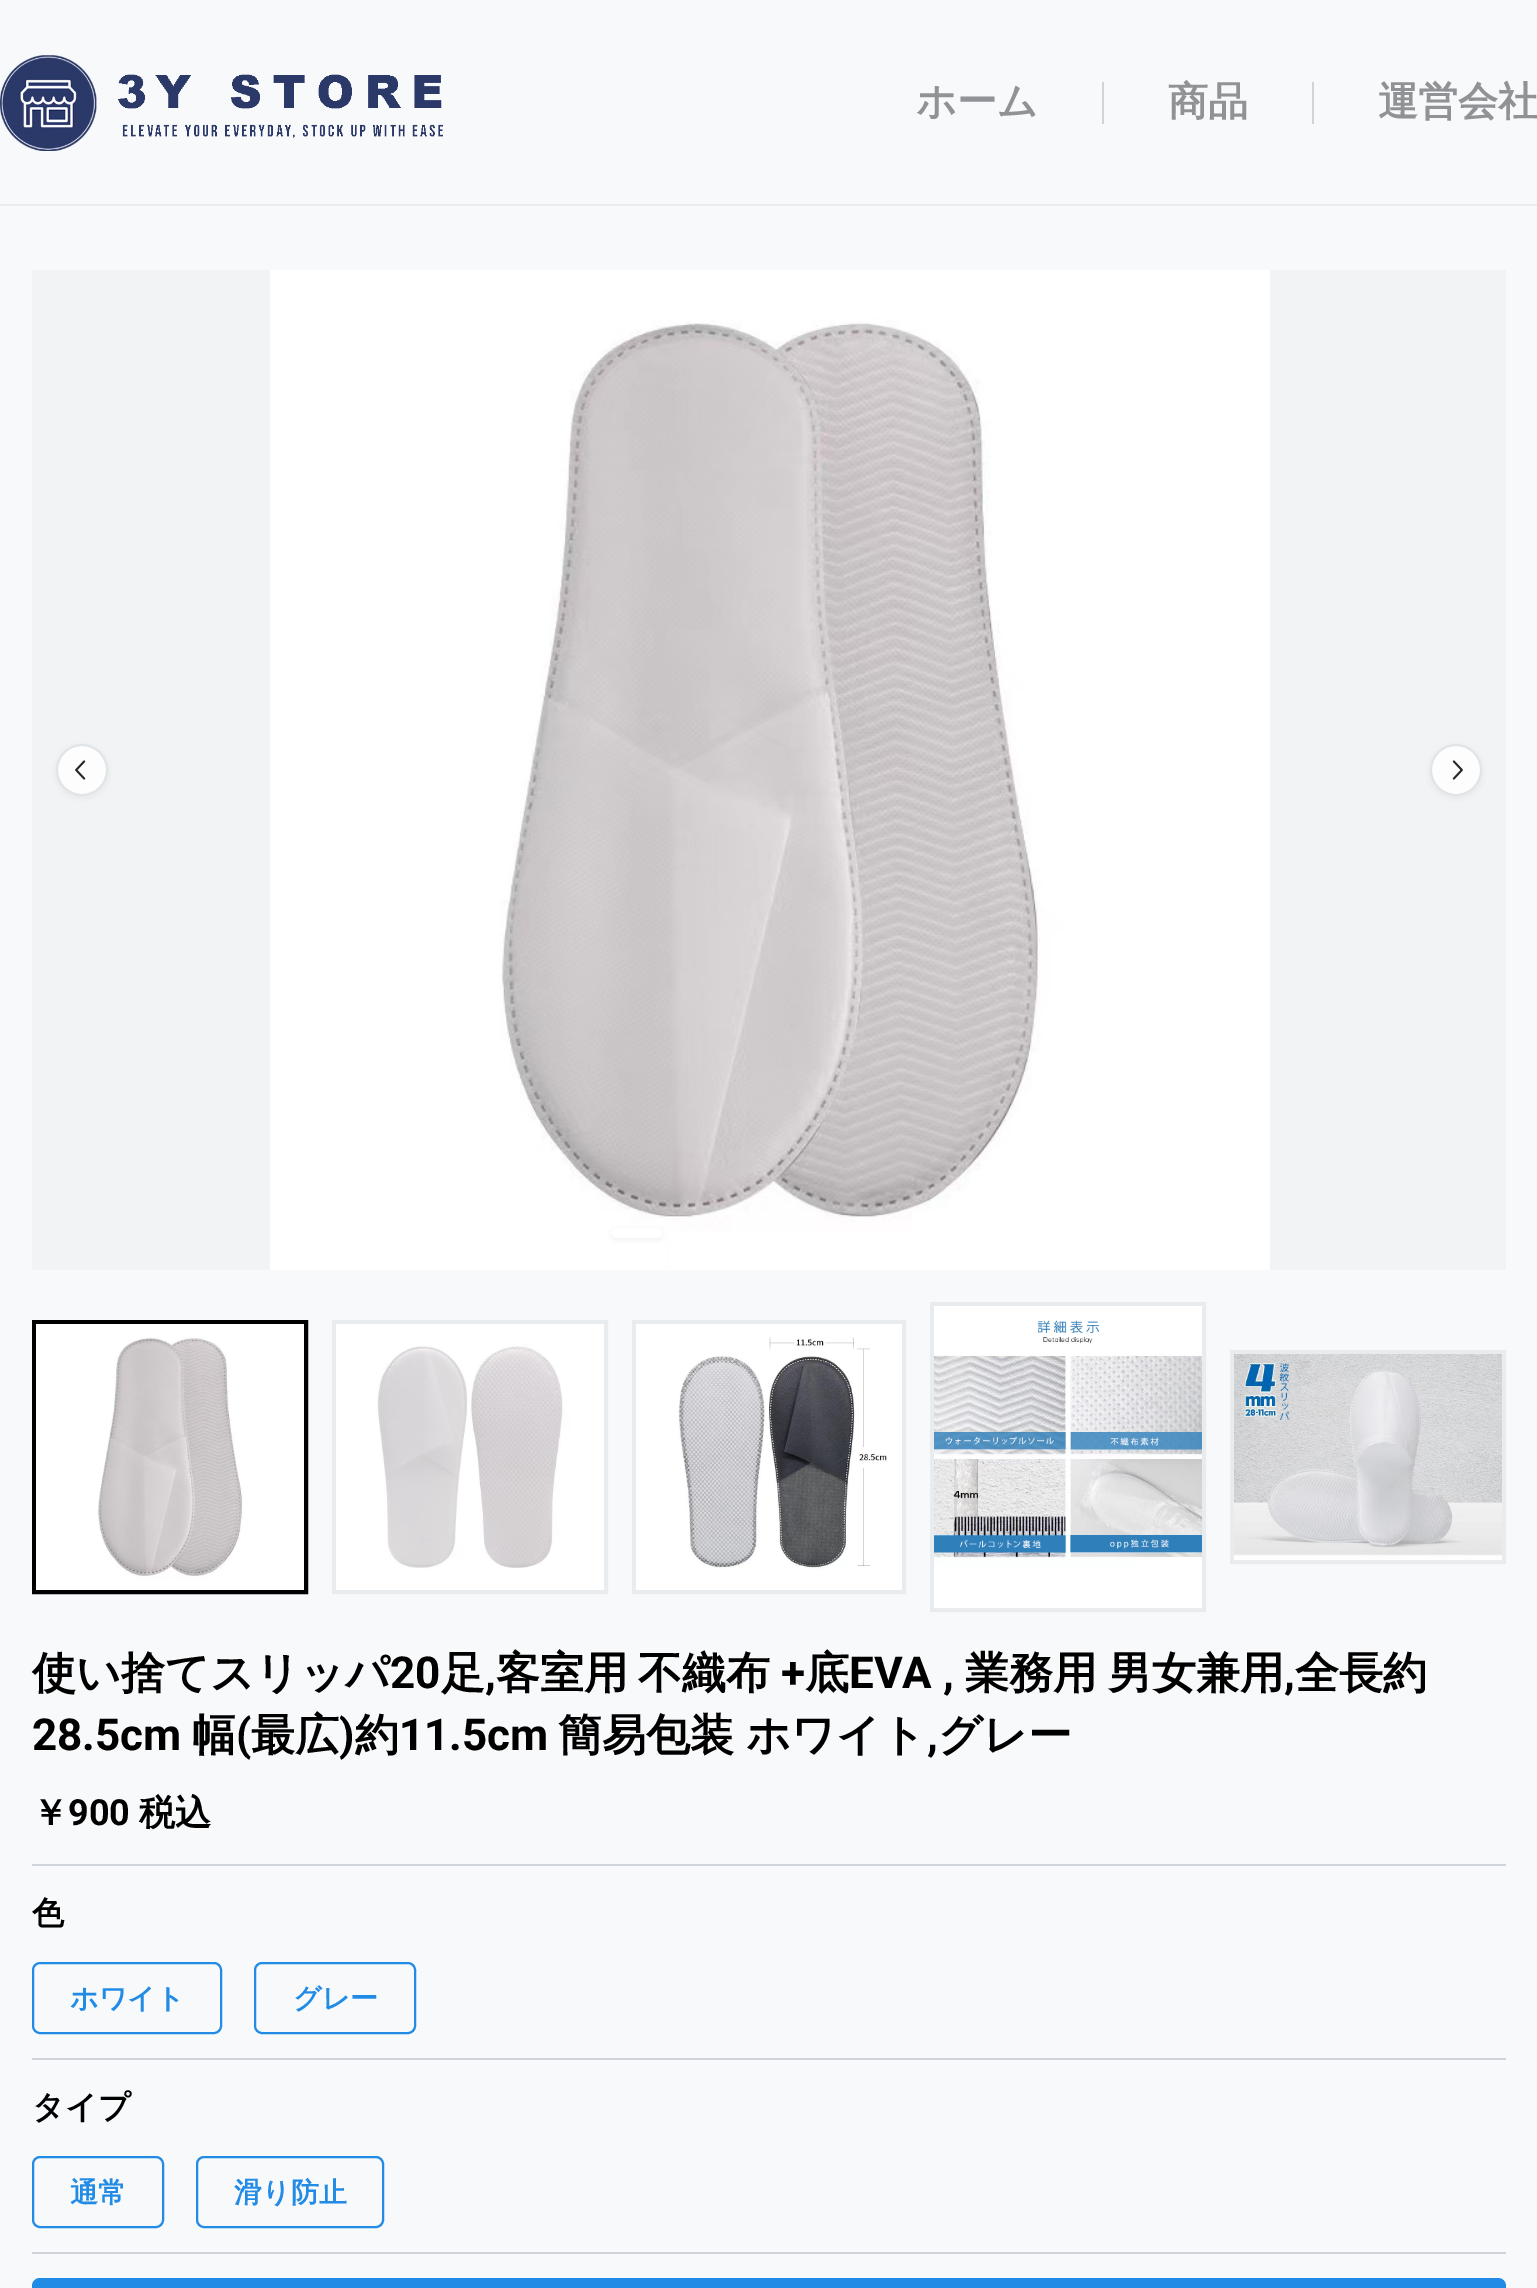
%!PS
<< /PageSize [1537 2288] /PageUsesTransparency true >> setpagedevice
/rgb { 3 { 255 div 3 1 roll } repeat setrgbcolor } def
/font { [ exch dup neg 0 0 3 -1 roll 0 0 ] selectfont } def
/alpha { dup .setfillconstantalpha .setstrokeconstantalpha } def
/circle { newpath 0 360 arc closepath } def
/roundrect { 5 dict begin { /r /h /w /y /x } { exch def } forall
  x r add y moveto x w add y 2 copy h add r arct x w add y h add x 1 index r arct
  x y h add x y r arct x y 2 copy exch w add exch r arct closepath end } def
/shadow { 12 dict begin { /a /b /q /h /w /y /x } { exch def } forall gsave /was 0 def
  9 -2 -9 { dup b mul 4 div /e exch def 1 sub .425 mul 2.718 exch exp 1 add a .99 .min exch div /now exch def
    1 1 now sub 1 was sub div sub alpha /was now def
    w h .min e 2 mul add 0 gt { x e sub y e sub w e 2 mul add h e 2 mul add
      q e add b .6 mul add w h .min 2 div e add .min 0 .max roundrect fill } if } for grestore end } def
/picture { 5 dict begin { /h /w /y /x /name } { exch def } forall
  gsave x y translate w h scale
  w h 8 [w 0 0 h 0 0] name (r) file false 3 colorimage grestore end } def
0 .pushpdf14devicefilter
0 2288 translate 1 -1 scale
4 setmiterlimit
248 249 250 rgb
0 0 1537 2288 rectfill
233 236 239 rgb
0 204 1537 2 rectfill
(img/1.rgb) 0 55 443 96 picture
[
  [1102 82 2 42 206 212 218]
  [1312 82 2 42 206 212 218]
  [32 270 1474 1000 241 243 245]
] { aload pop rgb rectfill } forall
(img/2.rgb) 270 270 1000 1000 picture
36 36 37 rgb
56 746 52 52 26 3 0.05 shadow
253 253 254 rgb
82 770 25 circle gsave fill grestore
225 229 232 rgb
2 setlinewidth
stroke
(img/3.rgb) 75 760 11 20 picture
36 36 37 rgb
1430 746 52 52 26 3 0.05 shadow
253 253 254 rgb
1456 770 25 circle gsave fill grestore
225 229 232 rgb
stroke
(img/4.rgb) 1452 760 11 20 picture
0 0 0 rgb
612 1230 50 10 5 3 0.05 shadow
255 255 255 rgb
612 1228 50 10 5 roundrect fill
0 0 0 rgb
4 setlinewidth
34 1322 272 270 rectstroke
(img/5.rgb) 36 1324 268 266 picture
233 236 239 rgb
334 1322 272 270 rectstroke
(img/6.rgb) 336 1324 268 266 picture
634 1322 270 270 rectstroke
(img/7.rgb) 636 1324 266 266 picture
932 1304 272 306 rectstroke
(img/8.rgb) 934 1306 268 302 picture
1232 1352 272 210 rectstroke
(img/9.rgb) 1234 1354 268 206 picture
206 212 218 rgb
32 1864 1474 2 rectfill
34 139 230 rgb
2 setlinewidth
33 1963 188 70 7 roundrect stroke
255 1963 160 70 7 roundrect stroke
206 212 218 rgb
32 2058 1474 2 rectfill
34 139 230 rgb
33 2157 130 70 7 roundrect stroke
197 2157 186 70 7 roundrect stroke
206 212 218 rgb
32 2252 1474 2 rectfill
34 139 230 rgb
32 2278 1474 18 8 roundrect fill
/WenQuanYiZenHei-Bold 40 font
144 146 150 rgb
[
  [(ホーム) 916 115]
  [(商品) 1168 115]
  [(運営会社) 1378 115]
] { aload pop moveto show } forall
/WenQuanYiZenHei-Bold 44 font
0 0 0 rgb
32 1688 moveto (使い捨てスリッパ) show
/Roboto-Bold 44 font
390 1688 moveto (20) show
/WenQuanYiZenHei-Bold 44 font
[
  [(足) 441 1688]
  [(客室用) 496 1688]
  [(不織布) 638 1688]
] { aload pop moveto show } forall
/Roboto-Bold 44 font
781 1688 moveto (+) show
/WenQuanYiZenHei-Bold 44 font
805 1688 moveto (底) show
/Roboto-Bold 44 font
849 1688 moveto (EVA ,) show
/WenQuanYiZenHei-Bold 44 font
[
  [(業務用) 965 1688]
  [(男女兼用) 1108 1688]
  [(全長約) 1295 1688]
] { aload pop moveto show } forall
/Roboto-Bold 44 font
[
  [(,) 485 1688]
  [(,) 1284 1688]
  [(28.5cm) 32 1750]
] { aload pop moveto show } forall
/WenQuanYiZenHei-Bold 44 font
192 1750 moveto (幅) show
/Roboto-Bold 44 font
236 1750 moveto (\() show
/WenQuanYiZenHei-Bold 44 font
251 1750 moveto (最広) show
/Roboto-Bold 44 font
339 1750 moveto (\)) show
/WenQuanYiZenHei-Bold 44 font
355 1750 moveto (約) show
/Roboto-Bold 44 font
399 1750 moveto (11.5cm) show
/WenQuanYiZenHei-Bold 44 font
558 1750 moveto -1 0 32 (簡易包装 ホワイト) widthshow
/Roboto-Bold 44 font
927 1750 moveto (,) show
/WenQuanYiZenHei-Bold 44 font
938 1750 moveto (グレー) show
/WenQuanYiZenHei-Bold 36 font
32 1825 moveto (￥) show
/Roboto-Bold 36 font
68 1825 moveto (900) show
/WenQuanYiZenHei-Bold 36 font
139 1825 moveto (税込) show
/WenQuanYiZenHei-Bold 32 font
32 1924 moveto (色) show
/WenQuanYiZenHei-Bold 28 font
34 139 230 rgb
70 2008 moveto (ホワイト) show
293 2008 moveto (グレー) show
/WenQuanYiZenHei-Bold 32 font
0 0 0 rgb
32 2118 moveto (タイプ) show
/WenQuanYiZenHei-Bold 28 font
34 139 230 rgb
70 2202 moveto (通常) show
234 2202 moveto (滑り防止) show
.poppdf14devicefilter showpage
